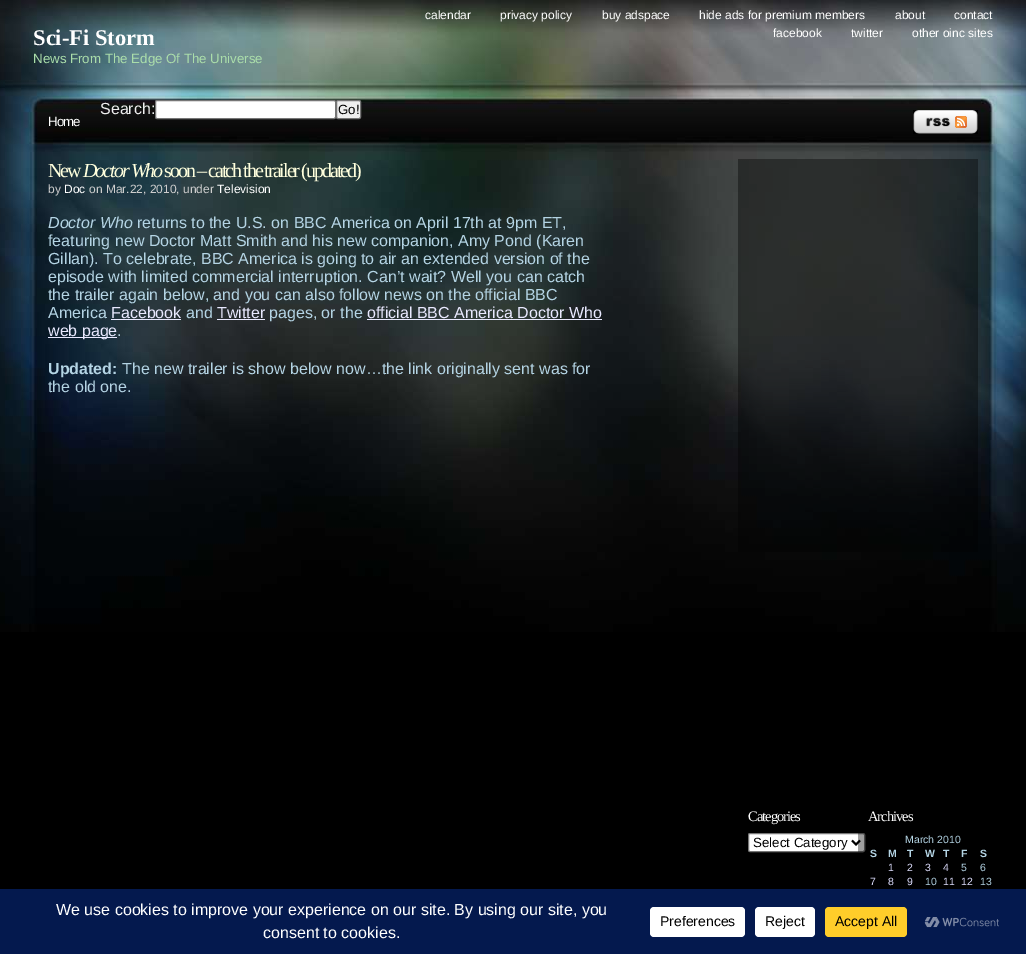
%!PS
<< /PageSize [1026 954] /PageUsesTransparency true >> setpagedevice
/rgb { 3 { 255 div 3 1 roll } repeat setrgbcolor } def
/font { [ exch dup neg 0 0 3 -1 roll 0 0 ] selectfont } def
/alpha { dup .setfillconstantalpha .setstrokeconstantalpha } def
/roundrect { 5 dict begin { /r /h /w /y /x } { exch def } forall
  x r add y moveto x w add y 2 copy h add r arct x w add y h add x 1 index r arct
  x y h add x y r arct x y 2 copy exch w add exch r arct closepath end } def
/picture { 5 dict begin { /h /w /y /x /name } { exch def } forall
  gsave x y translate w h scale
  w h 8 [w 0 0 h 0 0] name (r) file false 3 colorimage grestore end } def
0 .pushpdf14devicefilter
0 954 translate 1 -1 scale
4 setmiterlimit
0 0 0 rgb
0 0 1026 954 rectfill
(img/1.rgb) 0 0 1026 632 picture
255 255 255 rgb
155.5 100.5 180 18 1.5 roundrect gsave fill grestore
118 118 118 rgb
stroke
239 239 239 rgb
336.5 100.5 24 18 1.5 roundrect gsave fill grestore
118 118 118 rgb
stroke
(img/2.rgb) 913 110 65 24 picture
[
  [111 319 70 1 233 233 255]
  [217 319 48 1 233 233 255]
  [367 319 235 1 233 233 255]
  [48 337 69 1 233 233 255]
] { aload pop rgb rectfill } forall
0.38 alpha
[
  [738 159 240 393 0 0 0]
] { aload pop rgb rectfill } forall
1 alpha
255 255 255 rgb
748.5 833.5 116 18 1.5 roundrect gsave fill grestore
118 118 118 rgb
stroke
0 0 0 rgb
2 setlinewidth
852 840.5 moveto 856 844.5 lineto 860 840.5 lineto stroke
0.38 alpha
858 833 7 19 rectfill
1 alpha
4 25 78 rgb
0 889 1026 65 rectfill
255 255 255 rgb
650 907 95 30 4 roundrect fill
755 907 60 30 4 roundrect fill
255 205 42 rgb
825 907 82 30 4 roundrect fill
(img/3.rgb) 924 917 75 11 picture
/LiberationSans-Regular 12 font
255 255 255 rgb
[
  [(calendar) 425 19]
  [(privacy policy) 500 19]
  [(buy adspace) 602 19]
  [(hide ads for premium members) 699 19]
  [(about) 895 19]
  [(contact) 954 19]
  [(facebook) 773 37]
  [(twitter) 851 37]
  [(other oinc sites) 912 37]
] { aload pop moveto show } forall
/LiberationSerif-Bold 22.5 font
33 45 moveto (Sci-Fi Storm) show
/LiberationSans-Regular 13.3 font
170 221 170 rgb
33 63 moveto (News From The Edge Of The Universe) show
/LiberationSans-Regular 16 font
238 238 238 rgb
100 114 moveto (Search:) show
/LiberationSans-Regular 13.3 font
0 0 0 rgb
338 114 moveto (Go!) show
255 255 255 rgb
48 126 moveto -1 0 (Home) ashow
/LiberationSerif-Regular 20 font
255 255 221 rgb
48 177 moveto -2 0 (New) ashow
/LiberationSerif-Italic 20 font
83 177 moveto -2 0 (Doctor Who) ashow
/LiberationSerif-Regular 20 font
164 177 moveto -2 0 (soon – catch the trailer \(updated\)) ashow
/LiberationSans-Regular 12 font
205 205 205 rgb
48 193 moveto (by) show
255 255 255 rgb
64 193 moveto (Doc) show
205 205 205 rgb
89 193 moveto (on Mar.22, 2010, under) show
255 255 255 rgb
217 193 moveto (Television) show
/LiberationSans-Italic 16 font
180 212 228 rgb
48 228 moveto (Doctor Who) show
/LiberationSans-Regular 16 font
[
  [(returns to the U.S. on BBC America on April 17th at 9pm ET,) 137 228]
  [(featuring new Doctor Matt Smith and his new companion, Amy Pond \(Karen) 48 246]
  [(Gillan\). To celebrate, BBC America is going to air an extended version of the) 48 264]
  [(episode with limited commercial interruption. Can’t wait? Well you can catch) 48 282]
  [(the trailer again below, and you can also follow news on the official BBC) 48 300]
  [(America) 48 318]
] { aload pop moveto show } forall
233 233 255 rgb
111 318 moveto (Facebook) show
180 212 228 rgb
186 318 moveto (and) show
233 233 255 rgb
217 318 moveto (Twitter) show
180 212 228 rgb
269 318 moveto (pages, or the) show
233 233 255 rgb
367 318 moveto (official BBC America Doctor Who) show
48 336 moveto (web page) show
180 212 228 rgb
117 336 moveto (.) show
/LiberationSans-Bold 16 font
48 374 moveto (Updated:) show
/LiberationSans-Regular 16 font
122 374 moveto (The new trailer is show below now…the link originally sent was for) show
48 392 moveto (the old one.) show
/LiberationSerif-Regular 14.5 font
255 255 255 rgb
748 821 moveto -1 0 (Categories) ashow
/LiberationSans-Regular 13.3 font
0 0 0 rgb
753 847 moveto (Select Category) show
/LiberationSerif-Regular 14.5 font
255 255 255 rgb
868 821 moveto -1 0 (Archives) ashow
/LiberationSans-Regular 10.5 font
180 212 228 rgb
905 843 moveto (March 2010) show
/LiberationSans-Bold 10.5 font
[
  [(S) 870 857]
  [(M) 888 857]
  [(T) 907 857]
  [(W) 925 857]
  [(T) 943 857]
  [(F) 961 857]
  [(S) 980 857]
] { aload pop moveto show } forall
/LiberationSans-Regular 10.5 font
223 223 255 rgb
[
  [(1) 888 871]
  [(2) 907 871]
  [(3) 925 871]
  [(4) 943 871]
] { aload pop moveto show } forall
180 212 228 rgb
961 871 moveto (5) show
980 871 moveto (6) show
223 223 255 rgb
[
  [(7) 870 885]
  [(8) 888 885]
  [(9) 907 885]
] { aload pop moveto show } forall
180 212 228 rgb
925 885 moveto (10) show
223 223 255 rgb
943 885 moveto (11) show
961 885 moveto (12) show
180 212 228 rgb
980 885 moveto (13) show
/LiberationSans-Regular 16 font
255 255 255 rgb
56 915 moveto (We use cookies to improve your experience on our site. By using our site, you) show
263 938 moveto (consent to cookies.) show
/LiberationSans-Regular 14 font
0 0 0 rgb
[
  [(Preferences) 660 926]
  [(Reject) 765 926]
  [(Accept All) 835 926]
] { aload pop moveto show } forall
.poppdf14devicefilter showpage
